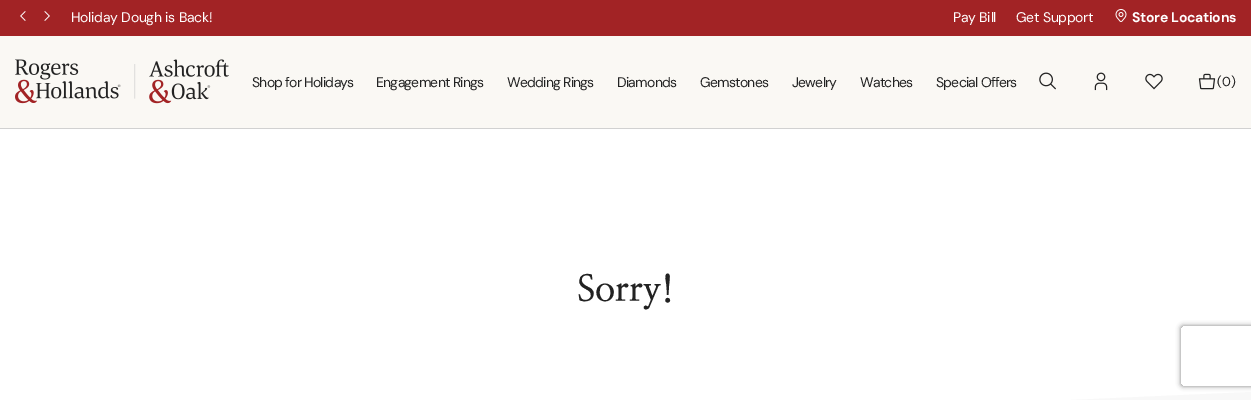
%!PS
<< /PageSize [1251 400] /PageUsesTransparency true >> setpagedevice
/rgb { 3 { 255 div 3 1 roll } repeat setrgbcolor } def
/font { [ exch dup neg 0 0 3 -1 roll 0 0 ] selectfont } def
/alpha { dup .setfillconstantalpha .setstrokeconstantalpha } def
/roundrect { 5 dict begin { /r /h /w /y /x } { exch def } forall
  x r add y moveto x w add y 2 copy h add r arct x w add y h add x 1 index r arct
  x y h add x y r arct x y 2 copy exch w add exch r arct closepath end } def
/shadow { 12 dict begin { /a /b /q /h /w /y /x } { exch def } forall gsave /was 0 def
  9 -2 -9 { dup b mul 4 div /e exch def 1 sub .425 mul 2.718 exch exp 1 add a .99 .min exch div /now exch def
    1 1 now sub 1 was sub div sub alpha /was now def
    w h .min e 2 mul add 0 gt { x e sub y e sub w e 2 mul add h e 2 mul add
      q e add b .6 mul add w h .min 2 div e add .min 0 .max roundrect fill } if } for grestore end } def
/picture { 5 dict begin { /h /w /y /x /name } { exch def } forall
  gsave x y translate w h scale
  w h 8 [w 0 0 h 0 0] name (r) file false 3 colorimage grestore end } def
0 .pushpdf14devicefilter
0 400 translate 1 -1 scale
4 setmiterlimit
250 248 244 rgb
0 0 1251 400 rectfill
209 209 209 rgb
0 128 1251 1 rectfill
162 35 37 rgb
0 0 1251 36 rectfill
(img/1.rgb) 20 11 6 10 picture
(img/2.rgb) 44 11 6 10 picture
(img/3.rgb) 1115 9 12 13 picture
(img/4.rgb) 15 59 214 45 picture
(img/5.rgb) 1039 72 17 18 picture
(img/6.rgb) 1094 72 14 19 picture
(img/7.rgb) 1145 73 18 17 picture
(img/8.rgb) 1198 73 18 17 picture
255 255 255 rgb
0 129 1251 271 rectfill
248 248 248 rgb
1251 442 moveto 126 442 lineto 1251 392 lineto closepath fill
gsave
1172 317 moveto 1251 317 lineto 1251 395 lineto 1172 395 lineto closepath 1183 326 moveto 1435 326 lineto 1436 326 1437 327 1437 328 curveto 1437 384 lineto 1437 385 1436 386 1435 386 curveto 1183 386 lineto 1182 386 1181 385 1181 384 curveto 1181 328 lineto 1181 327 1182 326 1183 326 curveto closepath eoclip newpath
128 128 128 rgb
1181 326 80 60 2 2.5 1 shadow
grestore
/DMSans-Regular 14 font
255 255 255 rgb
71 22 moveto -0.25 0 (Holiday Dough is Back!) ashow
953 22 moveto -0.25 0 (Pay Bill) ashow
1016 22 moveto -0.25 0 (Get Support) ashow
/DMSans-Bold 14 font
1132 22 moveto -0.25 0 (Store Locations) ashow
/DMSans-Regular 14 font
34 34 34 rgb
252 87 moveto -0.75 0 (Shop for Holidays) ashow
376 87 moveto -0.75 0 (Engagement Rings) ashow
507 87 moveto -0.75 0 (Wedding Rings) ashow
617 87 moveto -0.75 0 (Diamonds) ashow
700 87 moveto -0.75 0 (Gemstones) ashow
792 87 moveto -0.75 0 (Jewelry) ashow
860 87 moveto -0.75 0 (Watches) ashow
936 87 moveto -0.75 0 (Special Offers) ashow
/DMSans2-Regular 13 font
1217 86 moveto (\(0\)) show
/NanumMyeongjo-Bold 36 font
577 301 moveto (Sorry!) show
.poppdf14devicefilter showpage
